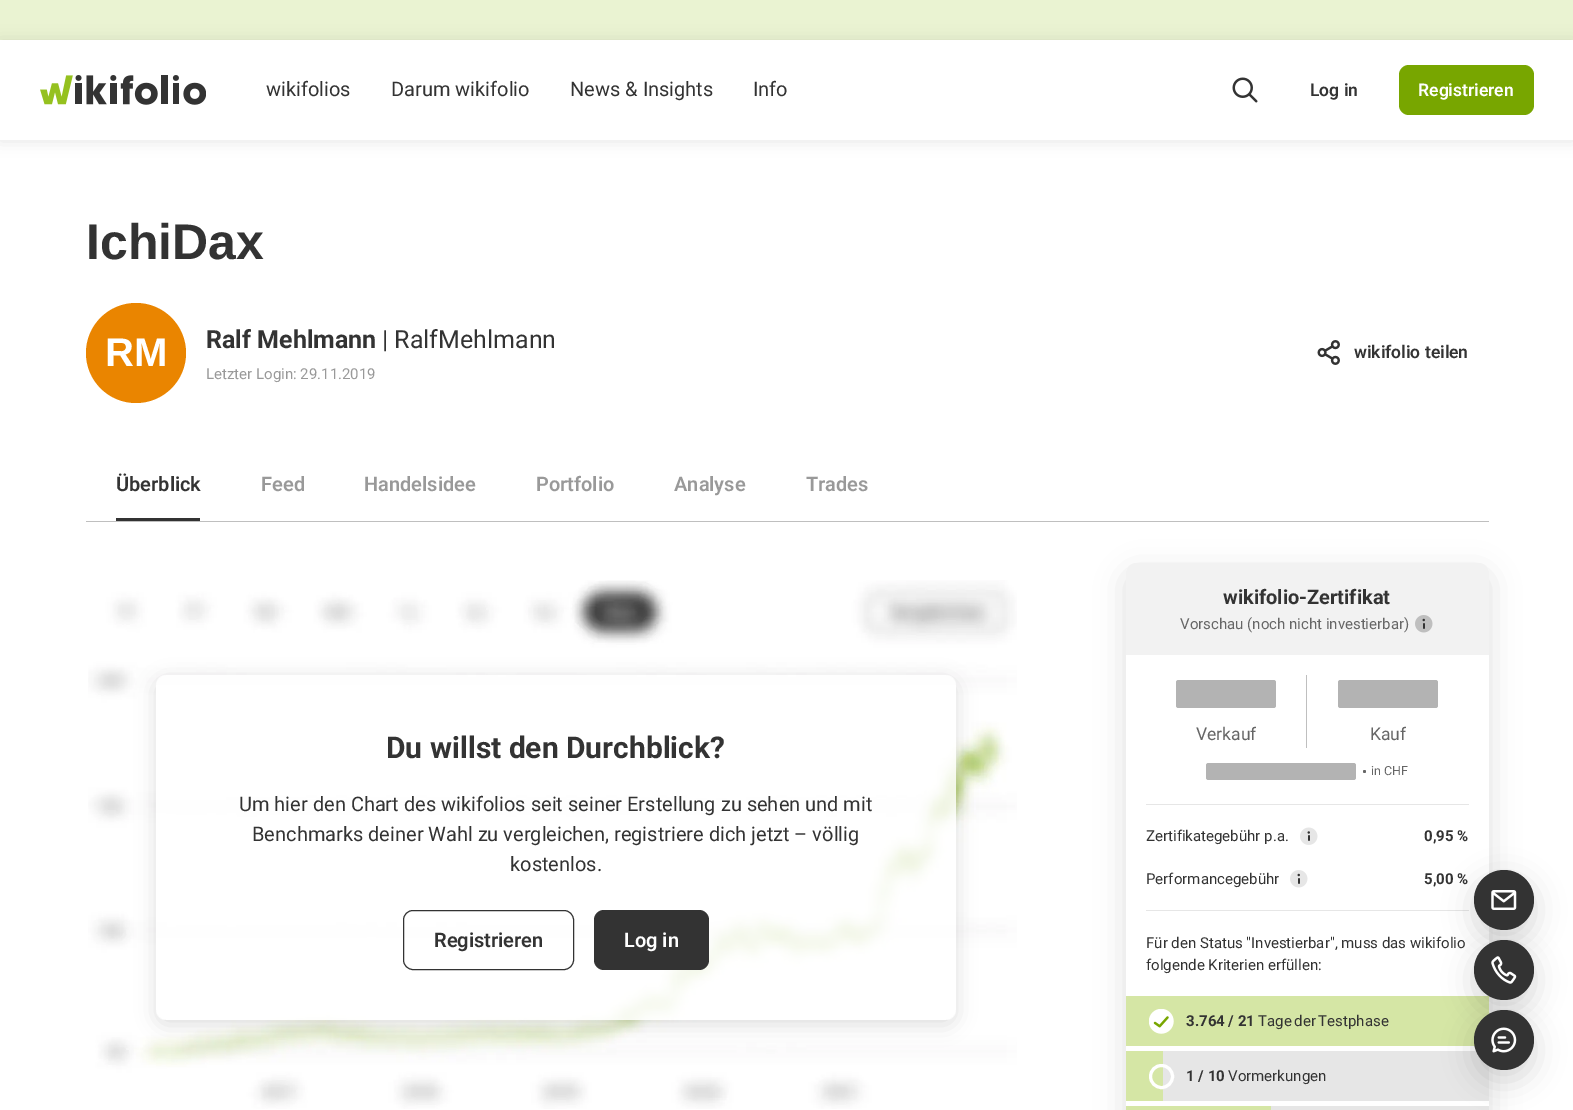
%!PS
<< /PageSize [1573 1110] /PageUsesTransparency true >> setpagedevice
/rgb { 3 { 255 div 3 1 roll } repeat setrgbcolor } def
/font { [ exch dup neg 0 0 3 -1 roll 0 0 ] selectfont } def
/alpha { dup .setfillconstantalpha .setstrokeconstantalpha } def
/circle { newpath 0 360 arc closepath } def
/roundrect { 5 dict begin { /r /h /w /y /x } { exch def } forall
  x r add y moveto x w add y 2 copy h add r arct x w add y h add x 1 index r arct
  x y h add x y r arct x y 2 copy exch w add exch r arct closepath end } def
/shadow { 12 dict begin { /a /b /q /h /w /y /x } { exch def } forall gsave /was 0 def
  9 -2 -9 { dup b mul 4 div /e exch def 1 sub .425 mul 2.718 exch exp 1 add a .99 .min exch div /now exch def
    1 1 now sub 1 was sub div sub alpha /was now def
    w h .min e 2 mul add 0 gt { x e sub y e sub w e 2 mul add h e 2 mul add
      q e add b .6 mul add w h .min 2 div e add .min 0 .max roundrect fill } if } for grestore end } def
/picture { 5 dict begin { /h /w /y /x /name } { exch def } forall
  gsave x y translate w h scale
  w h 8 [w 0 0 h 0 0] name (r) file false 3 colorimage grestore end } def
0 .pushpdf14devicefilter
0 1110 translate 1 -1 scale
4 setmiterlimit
255 255 255 rgb
0 0 1573 1110 rectfill
234 243 210 rgb
0 0 1573 40 rectfill
gsave
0 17 moveto 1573 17 lineto 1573 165 lineto 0 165 lineto closepath 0 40 moveto 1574 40 lineto 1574 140 lineto 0 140 lineto closepath eoclip newpath
0 0 0 rgb
0 41 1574 100 0 7.5 0.1 shadow
grestore
(img/1.rgb) 40 75 166 30 picture
(img/2.rgb) 1232 77 26 26 picture
120 166 0 rgb
1399 65 135 50 10 roundrect fill
234 133 0 rgb
136 353 50 circle fill
(img/3.rgb) 1317 340 23 25 picture
51 51 51 rgb
116 518 84 3 rectfill
191 191 191 rgb
86 521 1403 1 rectfill
(img/4.rgb) 88 580 929 529 picture
gsave
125 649 moveto 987 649 lineto 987 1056 lineto 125 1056 lineto closepath 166 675 moveto 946 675 lineto 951.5 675 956 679.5 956 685 curveto 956 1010 lineto 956 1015.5 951.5 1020 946 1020 curveto 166 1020 lineto 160.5 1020 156 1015.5 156 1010 curveto 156 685 lineto 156 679.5 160.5 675 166 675 curveto closepath eoclip newpath
0 0 0 rgb
156 680 800 345 10 10 0.12 shadow
grestore
0.8 alpha
255 255 255 rgb
156 675 800 345 10 roundrect fill
1 alpha
51 51 51 rgb
403.5 910.5 170 59 9.5 roundrect stroke
594 910 115 60 10 roundrect fill
0 0 0 rgb
1126 573 363 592 10 15 0.12 shadow
255 255 255 rgb
1126 563 363 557 10 roundrect fill
242 242 242 rgb
1136 563 moveto 1479 563 lineto 1484.5 563 1489 567.5 1489 573 curveto 1489 655 lineto 1126 655 lineto 1126 573 lineto 1126 567.5 1130.5 563 1136 563 curveto closepath fill
(img/5.rgb) 1415 615 18 18 picture
179 179 179 rgb
1176 680 100 28 2.5 roundrect fill
191 191 191 rgb
1306 675 1 73 rectfill
179 179 179 rgb
1338 680 100 28 2.5 roundrect fill
1206 763 150 17 2.5 roundrect fill
102 102 102 rgb
1364.5 771.5 1.5 circle fill
230 230 230 rgb
1146 804 323 1 rectfill
(img/6.rgb) 1300 827 18 18 picture
(img/7.rgb) 1290 870 18 18 picture
1146 910 323 1 rectfill
213 230 165 rgb
1126 996 363 50 rectfill
(img/8.rgb) 1149 1009 25 25 picture
230 230 230 rgb
1163 1051 326 50 rectfill
213 230 165 rgb
1126 1051 37 50 rectfill
255 255 255 rgb
3 setlinewidth
1161.5 1076.5 11 circle stroke
230 230 230 rgb
1271 1106 218 4 rectfill
213 230 165 rgb
1126 1106 145 4 rectfill
0 0 0 rgb
1474 880 60 60 30 15 0.15 shadow
51 51 51 rgb
1504 900 30 circle fill
(img/9.rgb) 1491 890 26 20 picture
0 0 0 rgb
1474 950 60 60 30 15 0.15 shadow
51 51 51 rgb
1504 970 30 circle fill
(img/10.rgb) 1491 956 26 28 picture
0 0 0 rgb
1474 1020 60 60 30 15 0.15 shadow
51 51 51 rgb
1504 1040 30 circle fill
(img/11.rgb) 1491 1027 26 26 picture
/Roboto-Regular 20 font
[
  [(wikifolios) 266 96]
  [(Darum wikifolio) 391 96]
  [(News & Insights) 570 96]
  [(Info) 753 96]
] { aload pop moveto show } forall
/Roboto-SemiBold 17.5 font
1310 96 moveto (Log in) show
255 255 255 rgb
1418 96 moveto (Registrieren) show
/LiberationSans-Bold 50 font
51 51 51 rgb
86 259 moveto (IchiDax) show
/LiberationSans-Bold 40 font
255 255 255 rgb
105 366 moveto (RM) show
/Roboto-Bold 25 font
51 51 51 rgb
206 348 moveto (Ralf Mehlmann) show
/Roboto-Regular 25 font
382 348 moveto (| RalfMehlmann) show
/Roboto-Regular 15 font
153 153 153 rgb
206 379 moveto (Letzter Login: 29.11.2019) show
/Roboto-SemiBold 17.5 font
51 51 51 rgb
1354 358 moveto (wikifolio teilen) show
/Roboto-SemiBold 20 font
116 491 moveto (Überblick) show
153 153 153 rgb
[
  [(Feed) 261 491]
  [(Handelsidee) 364 491]
  [(Portfolio) 536 491]
  [(Analyse) 674 491]
  [(Trades) 806 491]
] { aload pop moveto show } forall
/Roboto-Bold 30 font
51 51 51 rgb
386 758 moveto (Du willst den Durchblick?) show
/Roboto-Regular 20 font
239 811 moveto (Um hier den Chart des wikifolios seit seiner Erstellung zu sehen und mit) show
252 841 moveto -0.1 0 32 (Benchmarks deiner Wahl zu vergleichen, registriere dich jetzt – völlig) widthshow
510 871 moveto (kostenlos.) show
/Roboto-SemiBold 20 font
434 947 moveto (Registrieren) show
255 255 255 rgb
624 947 moveto (Log in) show
/Roboto-Bold 20 font
51 51 51 rgb
1223 604 moveto (wikifolio-Zertifikat) show
/Roboto-Regular 15 font
102 102 102 rgb
1180 629 moveto (Vorschau \(noch nicht investierbar\)) show
/Roboto-Regular 17.5 font
1196 740 moveto (Verkauf) show
1370 740 moveto (Kauf) show
/Roboto-Regular 12.5 font
1371 775 moveto (in CHF) show
/Roboto-Regular 15 font
51 51 51 rgb
1146 841 moveto (Zertifikategebühr p.a.) show
/Roboto-Bold 15 font
1424 841 moveto (0,95 %) show
/Roboto-Regular 15 font
1146 884 moveto (Performancegebühr) show
/Roboto-Bold 15 font
1424 884 moveto (5,00 %) show
/Roboto-Regular 15 font
1146 948 moveto (Für den Status "Investierbar", muss das wikifolio) show
1146 970 moveto (folgende Kriterien erfüllen:) show
/Roboto-Bold 15 font
1186 1026 moveto (3.764 / 21) show
/Roboto-Regular 15 font
1258 1026 moveto -1 0 32 (Tage der Testphase) widthshow
/Roboto-Bold 15 font
1186 1081 moveto (1 / 10) show
/Roboto-Regular 15 font
1228 1081 moveto (Vormerkungen) show
.poppdf14devicefilter showpage
